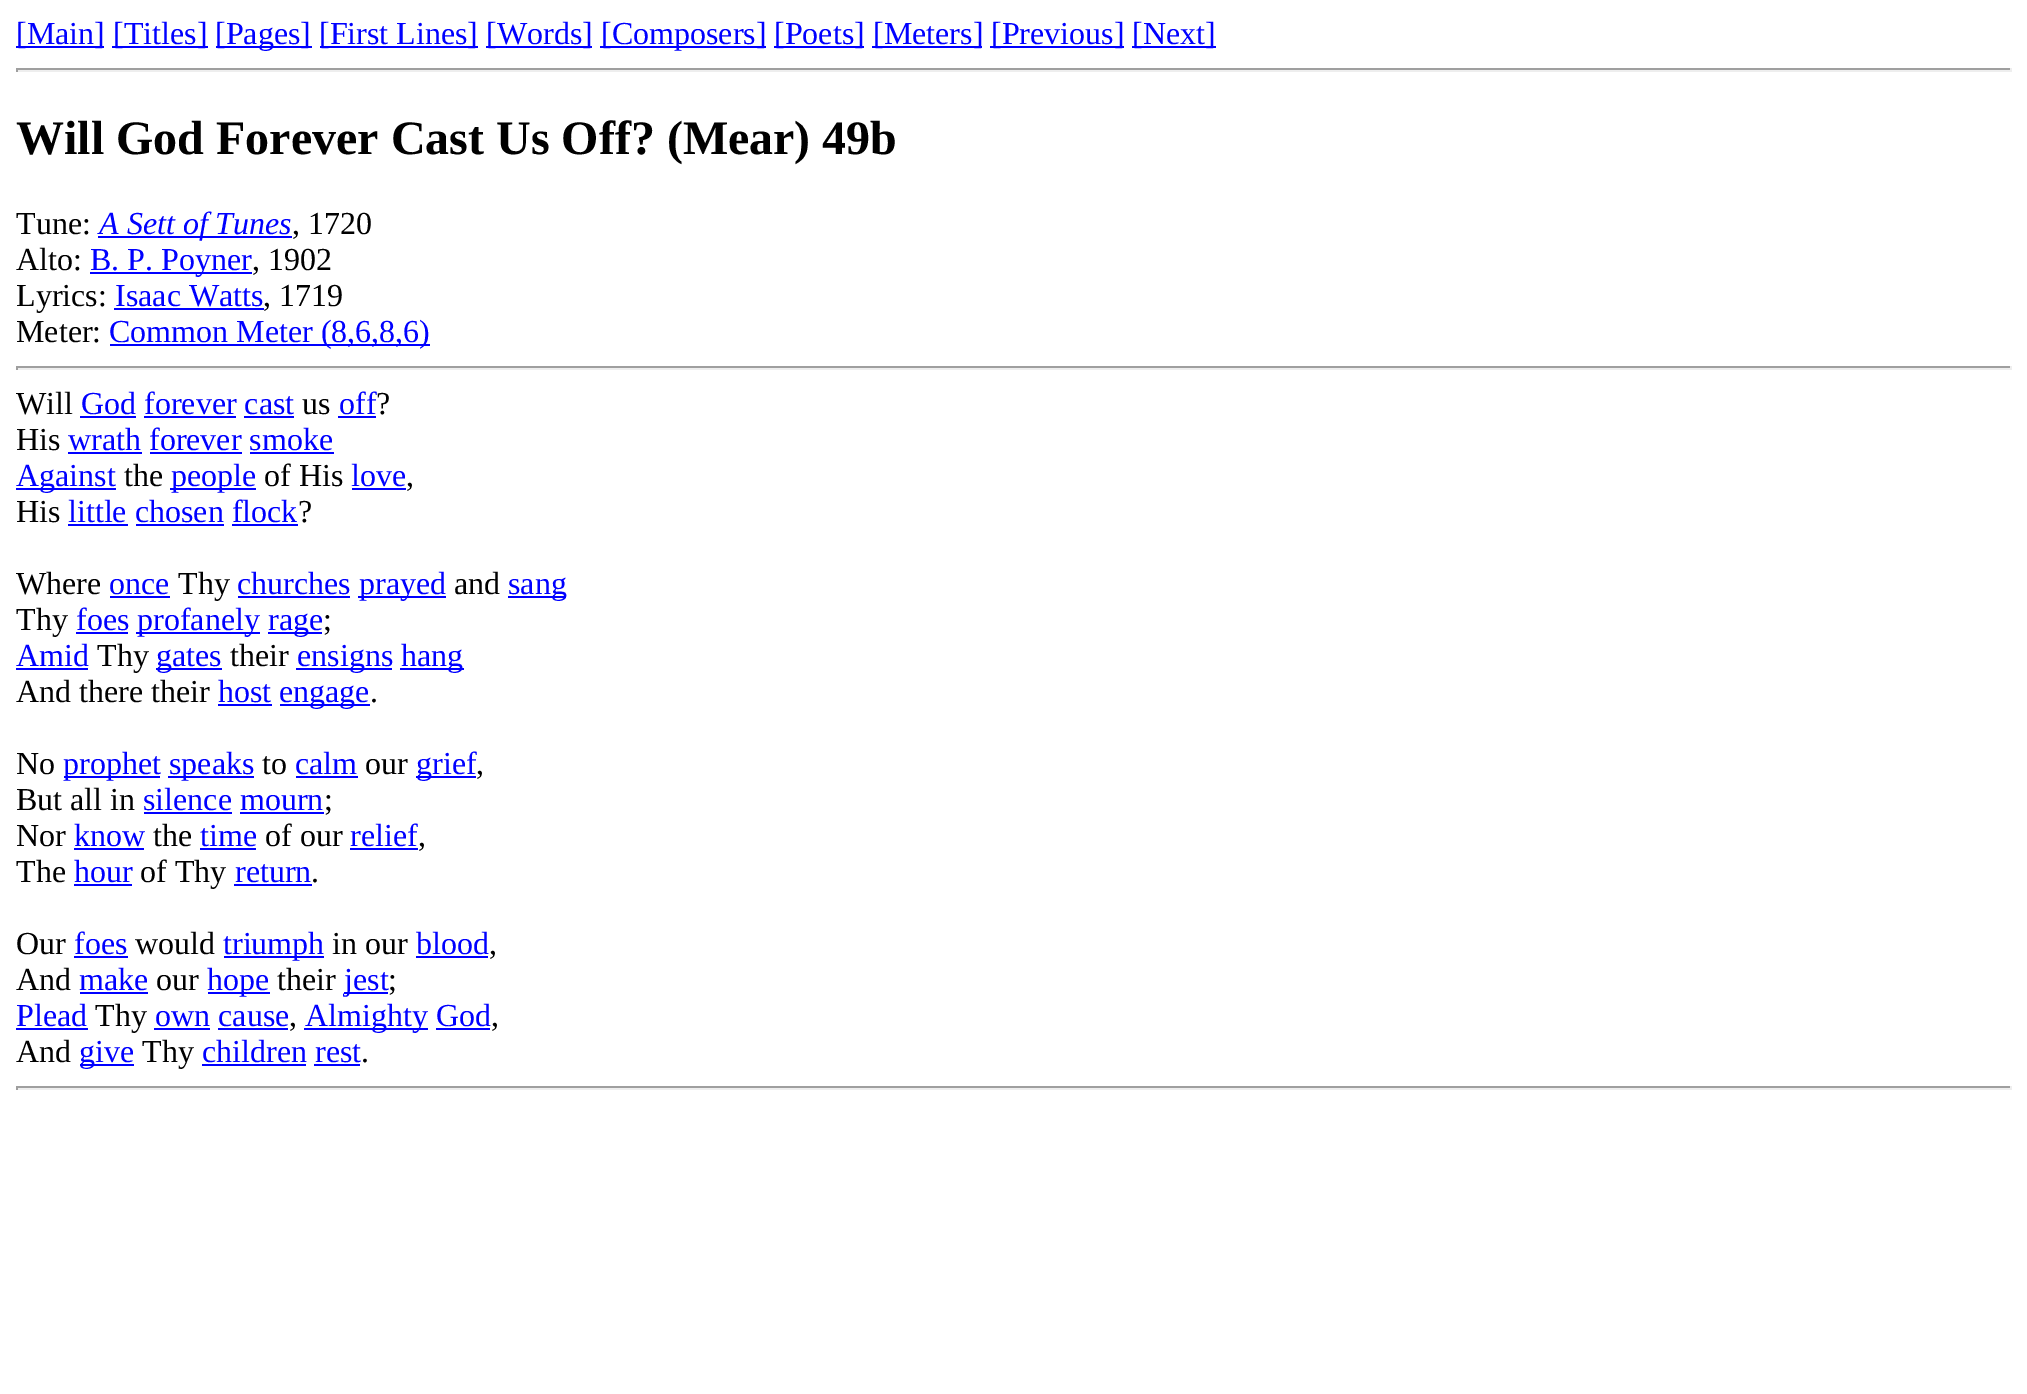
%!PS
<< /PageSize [2027 1394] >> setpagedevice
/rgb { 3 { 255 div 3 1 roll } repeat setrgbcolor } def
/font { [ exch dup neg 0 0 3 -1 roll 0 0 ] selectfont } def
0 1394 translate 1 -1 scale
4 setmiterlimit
255 255 255 rgb
0 0 2027 1394 rectfill
[
  [16 46 88 2 0 0 255]
  [112 46 96 2 0 0 255]
  [216 46 96 2 0 0 255]
  [320 46 158 2 0 0 255]
  [486 46 106 2 0 0 255]
  [600 46 166 2 0 0 255]
  [774 46 90 2 0 0 255]
  [872 46 110 2 0 0 255]
  [990 46 134 2 0 0 255]
  [1132 46 84 2 0 0 255]
  [16 68 1996 2 159 159 159]
  [2010 68 2 4 238 238 238]
  [16 70 1996 2 238 238 238]
  [16 68 2 4 159 159 159]
  [98 236 194 2 0 0 255]
  [90 272 162 2 0 0 255]
  [114 308 150 2 0 0 255]
  [110 344 320 2 0 0 255]
  [16 366 1996 2 159 159 159]
  [2010 366 2 4 238 238 238]
  [16 368 1996 2 238 238 238]
  [16 366 2 4 159 159 159]
  [80 416 56 2 0 0 255]
  [338 416 38 2 0 0 255]
  [144 416 92 2 0 0 255]
  [244 416 50 2 0 0 255]
  [68 452 74 2 0 0 255]
  [150 452 92 2 0 0 255]
  [250 452 84 2 0 0 255]
  [16 488 100 2 0 0 255]
  [170 488 86 2 0 0 255]
  [352 488 54 2 0 0 255]
  [68 524 60 2 0 0 255]
  [136 524 88 2 0 0 255]
  [232 524 66 2 0 0 255]
  [110 596 60 2 0 0 255]
  [238 596 112 2 0 0 255]
  [358 596 88 2 0 0 255]
  [508 596 58 2 0 0 255]
  [76 632 52 2 0 0 255]
  [136 632 124 2 0 0 255]
  [268 632 54 2 0 0 255]
  [16 668 72 2 0 0 255]
  [156 668 66 2 0 0 255]
  [296 668 96 2 0 0 255]
  [400 668 64 2 0 0 255]
  [218 704 54 2 0 0 255]
  [280 704 90 2 0 0 255]
  [64 776 96 2 0 0 255]
  [168 776 86 2 0 0 255]
  [296 776 62 2 0 0 255]
  [416 776 60 2 0 0 255]
  [144 812 88 2 0 0 255]
  [240 812 84 2 0 0 255]
  [74 848 70 2 0 0 255]
  [200 848 56 2 0 0 255]
  [350 848 68 2 0 0 255]
  [74 884 58 2 0 0 255]
  [234 884 78 2 0 0 255]
  [74 956 54 2 0 0 255]
  [224 956 100 2 0 0 255]
  [416 956 72 2 0 0 255]
  [80 992 68 2 0 0 255]
  [208 992 62 2 0 0 255]
  [344 992 44 2 0 0 255]
  [16 1028 72 2 0 0 255]
  [154 1028 56 2 0 0 255]
  [304 1028 124 2 0 0 255]
  [218 1028 70 2 0 0 255]
  [436 1028 54 2 0 0 255]
  [80 1064 54 2 0 0 255]
  [202 1064 104 2 0 0 255]
  [314 1064 46 2 0 0 255]
  [16 1086 1996 2 159 159 159]
  [2010 1086 2 4 238 238 238]
  [16 1088 1996 2 238 238 238]
  [16 1086 2 4 159 159 159]
] { aload pop rgb rectfill } forall
/LiberationSerif-Regular 32 font
0 0 255 rgb
[
  [([Main]) 16 44]
  [([Titles]) 113 44]
  [([Pages]) 215 44]
  [([First Lines]) 319 44]
  [([Words]) 486 44]
  [([Composers]) 601 44]
  [([Poets]) 774 44]
  [([Meters]) 873 44]
  [([Previous]) 991 44]
  [([Next]) 1132 44]
] { aload pop moveto show } forall
/LiberationSerif-Bold 48 font
0 0 0 rgb
16 154 moveto (Will God Forever Cast Us Off? \(Mear\) 49b) show
/LiberationSerif-Regular 32 font
16 234 moveto (Tune:) show
/LiberationSerif-Italic 32 font
0 0 255 rgb
99 234 moveto (A Sett of Tunes) show
/LiberationSerif-Regular 32 font
0 0 0 rgb
292 234 moveto (, 1720) show
16 270 moveto (Alto:) show
0 0 255 rgb
90 270 moveto (B. P. Poyner) show
0 0 0 rgb
252 270 moveto (, 1902) show
16 306 moveto (Lyrics:) show
0 0 255 rgb
115 306 moveto (Isaac Watts) show
0 0 0 rgb
263 306 moveto (, 1719) show
16 342 moveto (Meter:) show
0 0 255 rgb
109 342 moveto (Common Meter \(8,6,8,6\)) show
0 0 0 rgb
16 414 moveto (Will) show
0 0 255 rgb
81 414 moveto (God forever cast) show
0 0 0 rgb
302 414 moveto (us) show
0 0 255 rgb
339 414 moveto (off) show
0 0 0 rgb
376 414 moveto (?) show
16 450 moveto (His) show
0 0 255 rgb
68 450 moveto (wrath forever smoke) show
16 486 moveto (Against) show
0 0 0 rgb
124 486 moveto (the) show
0 0 255 rgb
171 486 moveto (people) show
0 0 0 rgb
264 486 moveto (of His) show
0 0 255 rgb
351 486 moveto (love) show
0 0 0 rgb
406 486 moveto (,) show
16 522 moveto (His) show
0 0 255 rgb
68 522 moveto (little chosen flock) show
0 0 0 rgb
298 522 moveto (?) show
16 594 moveto (Where) show
0 0 255 rgb
109 594 moveto (once) show
0 0 0 rgb
178 594 moveto (Thy) show
0 0 255 rgb
237 594 moveto (churches) show
359 594 moveto (prayed) show
0 0 0 rgb
454 594 moveto (and) show
0 0 255 rgb
508 594 moveto (sang) show
0 0 0 rgb
16 630 moveto (Thy) show
0 0 255 rgb
[
  [(foes) 76 630]
  [(profanely) 137 630]
  [(rage) 268 630]
] { aload pop moveto show } forall
0 0 0 rgb
323 630 moveto (;) show
0 0 255 rgb
16 666 moveto (Amid) show
0 0 0 rgb
97 666 moveto (Thy) show
0 0 255 rgb
156 666 moveto (gates) show
0 0 0 rgb
230 666 moveto (their) show
0 0 255 rgb
297 666 moveto (ensigns) show
401 666 moveto (hang) show
0 0 0 rgb
16 702 moveto (And there their) show
0 0 255 rgb
218 702 moveto (host) show
279 702 moveto (engage) show
0 0 0 rgb
370 702 moveto (.) show
16 774 moveto (No) show
0 0 255 rgb
63 774 moveto (prophet) show
169 774 moveto (speaks) show
0 0 0 rgb
262 774 moveto (to) show
0 0 255 rgb
295 774 moveto (calm) show
0 0 0 rgb
365 774 moveto (our) show
0 0 255 rgb
416 774 moveto (grief) show
0 0 0 rgb
476 774 moveto (,) show
16 810 moveto (But all in) show
0 0 255 rgb
143 810 moveto (silence mourn) show
0 0 0 rgb
324 810 moveto (;) show
16 846 moveto (Nor) show
0 0 255 rgb
74 846 moveto (know) show
0 0 0 rgb
153 846 moveto (the) show
0 0 255 rgb
200 846 moveto (time) show
0 0 0 rgb
265 846 moveto (of our) show
0 0 255 rgb
350 846 moveto (relief) show
0 0 0 rgb
418 846 moveto (,) show
16 882 moveto (The) show
0 0 255 rgb
74 882 moveto (hour) show
0 0 0 rgb
140 882 moveto (of Thy) show
0 0 255 rgb
235 882 moveto (return) show
0 0 0 rgb
311 882 moveto (.) show
16 954 moveto (Our) show
0 0 255 rgb
74 954 moveto (foes) show
0 0 0 rgb
135 954 moveto (would) show
0 0 255 rgb
223 954 moveto (triumph) show
0 0 0 rgb
332 954 moveto (in our) show
0 0 255 rgb
416 954 moveto (blood) show
0 0 0 rgb
489 954 moveto (,) show
16 990 moveto (And) show
0 0 255 rgb
79 990 moveto (make) show
0 0 0 rgb
156 990 moveto (our) show
0 0 255 rgb
207 990 moveto (hope) show
0 0 0 rgb
277 990 moveto (their) show
0 0 255 rgb
344 990 moveto (jest) show
0 0 0 rgb
388 990 moveto (;) show
0 0 255 rgb
16 1026 moveto (Plead) show
0 0 0 rgb
95 1026 moveto (Thy) show
0 0 255 rgb
155 1026 moveto (own cause) show
0 0 0 rgb
289 1026 moveto (,) show
0 0 255 rgb
305 1026 moveto (Almighty God) show
0 0 0 rgb
491 1026 moveto (,) show
16 1062 moveto (And) show
0 0 255 rgb
79 1062 moveto (give) show
0 0 0 rgb
142 1062 moveto (Thy) show
0 0 255 rgb
202 1062 moveto (children rest) show
0 0 0 rgb
361 1062 moveto (.) show
showpage
